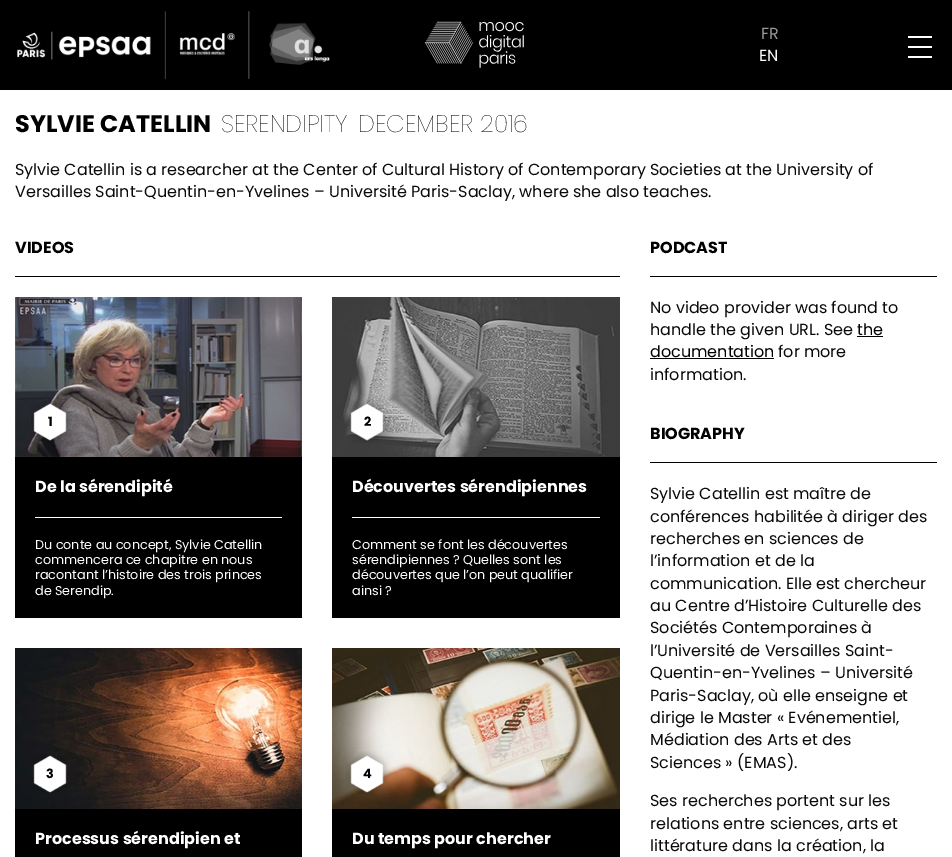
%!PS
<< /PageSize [952 857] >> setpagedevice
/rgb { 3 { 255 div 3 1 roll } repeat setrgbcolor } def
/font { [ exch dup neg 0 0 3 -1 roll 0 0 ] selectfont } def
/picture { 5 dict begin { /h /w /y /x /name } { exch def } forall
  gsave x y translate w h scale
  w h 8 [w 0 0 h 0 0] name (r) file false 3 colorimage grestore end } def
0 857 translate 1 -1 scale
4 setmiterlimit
255 255 255 rgb
0 0 952 857 rectfill
0 0 0 rgb
0 0 952 90 rectfill
(img/1.rgb) 17 11 313 68 picture
(img/2.rgb) 424 21 100 47 picture
[
  [908 36 24 2 255 255 255]
  [908 46 24 2 255 255 255]
  [908 56 24 2 255 255 255]
  [15 276 605 1 0 0 0]
  [15 457 287 161 0 0 0]
] { aload pop rgb rectfill } forall
(img/3.rgb) 15 297 287 160 picture
(img/4.rgb) 31 400 41 42 picture
255 255 255 rgb
35 517 247 1 rectfill
0 0 0 rgb
332 457 288 161 rectfill
(img/5.rgb) 332 297 288 160 picture
(img/6.rgb) 346 399 44 44 picture
255 255 255 rgb
352 517 248 1 rectfill
0 0 0 rgb
15 809 287 48 rectfill
(img/7.rgb) 15 648 287 161 picture
(img/8.rgb) 33 755 34 38 picture
332 809 288 48 rectfill
(img/9.rgb) 332 648 288 161 picture
(img/10.rgb) 345 751 45 44 picture
[
  [650 276 287 1 0 0 0]
  [857 336 26 1 0 0 0]
  [650 358 124 1 0 0 0]
  [650 462 287 1 0 0 0]
] { aload pop rgb rectfill } forall
/Poppins-Regular 16 font
153 153 153 rgb
761 39 moveto (FR) show
255 255 255 rgb
759 61 moveto (EN) show
/Poppins-Bold 24 font
0 0 0 rgb
15 132 moveto (SYLVIE CATELLIN) show
/Poppins-Thin 24 font
221 132 moveto (SERENDIPITY) show
358 132 moveto (DECEMBER 2016) show
/Poppins-Regular 16 font
10 10 10 rgb
15 175 moveto (Sylvie Catellin is a researcher at the Center of Cultural History of Contemporary Societies at the University of) show
15 197 moveto (Versailles Saint-Quentin-en-Yvelines – Université Paris-Saclay, where she also teaches.) show
/Poppins-Bold 16 font
0 0 0 rgb
15 253 moveto (VIDEOS) show
/Poppins-Bold 12.75 font
48 426 moveto (1) show
/Poppins-Bold 16 font
255 255 255 rgb
35 492 moveto (De la sérendipité) show
/Poppins-Regular 12.75 font
[
  [(Du conte au concept, Sylvie Catellin) 35 549]
  [(commencera ce chapitre en nous) 35 564]
  [(racontant l’histoire des trois princes) 35 579]
  [(de Serendip.) 35 595]
] { aload pop moveto show } forall
/Poppins-Bold 12.75 font
0 0 0 rgb
364 426 moveto (2) show
/Poppins-Bold 16 font
255 255 255 rgb
352 492 moveto (Découvertes sérendipiennes) show
/Poppins-Regular 12.75 font
[
  [(Comment se font les découvertes) 352 549]
  [(sérendipiennes ? Quelles sont les) 352 564]
  [(découvertes que l’on peut qualifier) 352 579]
  [(ainsi ?) 352 595]
] { aload pop moveto show } forall
/Poppins-Bold 12.75 font
0 0 0 rgb
46 778 moveto (3) show
/Poppins-Bold 16 font
255 255 255 rgb
35 844 moveto (Processus sérendipien et) show
/Poppins-Bold 12.75 font
0 0 0 rgb
363 778 moveto (4) show
/Poppins-Bold 16 font
255 255 255 rgb
352 844 moveto (Du temps pour chercher) show
0 0 0 rgb
650 253 moveto (PODCAST) show
/Poppins-Regular 16 font
10 10 10 rgb
650 313 moveto (No video provider was found to) show
650 335 moveto (handle the given URL. See) show
0 0 0 rgb
857 335 moveto (the) show
650 357 moveto (documentation) show
10 10 10 rgb
778 357 moveto (for more) show
650 380 moveto (information.) show
/Poppins-Bold 16 font
0 0 0 rgb
650 439 moveto (BIOGRAPHY) show
/Poppins-Regular 16 font
10 10 10 rgb
[
  [(Sylvie Catellin est maître de) 650 499]
  [(conférences habilitée à diriger des) 650 522]
  [(recherches en sciences de) 650 544]
  [(l’information et de la) 650 566]
  [(communication. Elle est chercheur) 650 589]
  [(au Centre d’Histoire Culturelle des) 650 611]
  [(Sociétés Contemporaines à) 650 633]
  [(l’Université de Versailles Saint-) 650 656]
  [(Quentin-en-Yvelines – Université) 650 678]
  [(Paris-Saclay, où elle enseigne et) 650 701]
  [(dirige le Master « Evénementiel,) 650 723]
  [(Médiation des Arts et des) 650 745]
  [(Sciences » \(EMAS\).) 650 768]
  [(Ses recherches portent sur les) 650 806]
  [(relations entre sciences, arts et) 650 829]
  [(littérature dans la création, la) 650 851]
] { aload pop moveto show } forall
showpage
